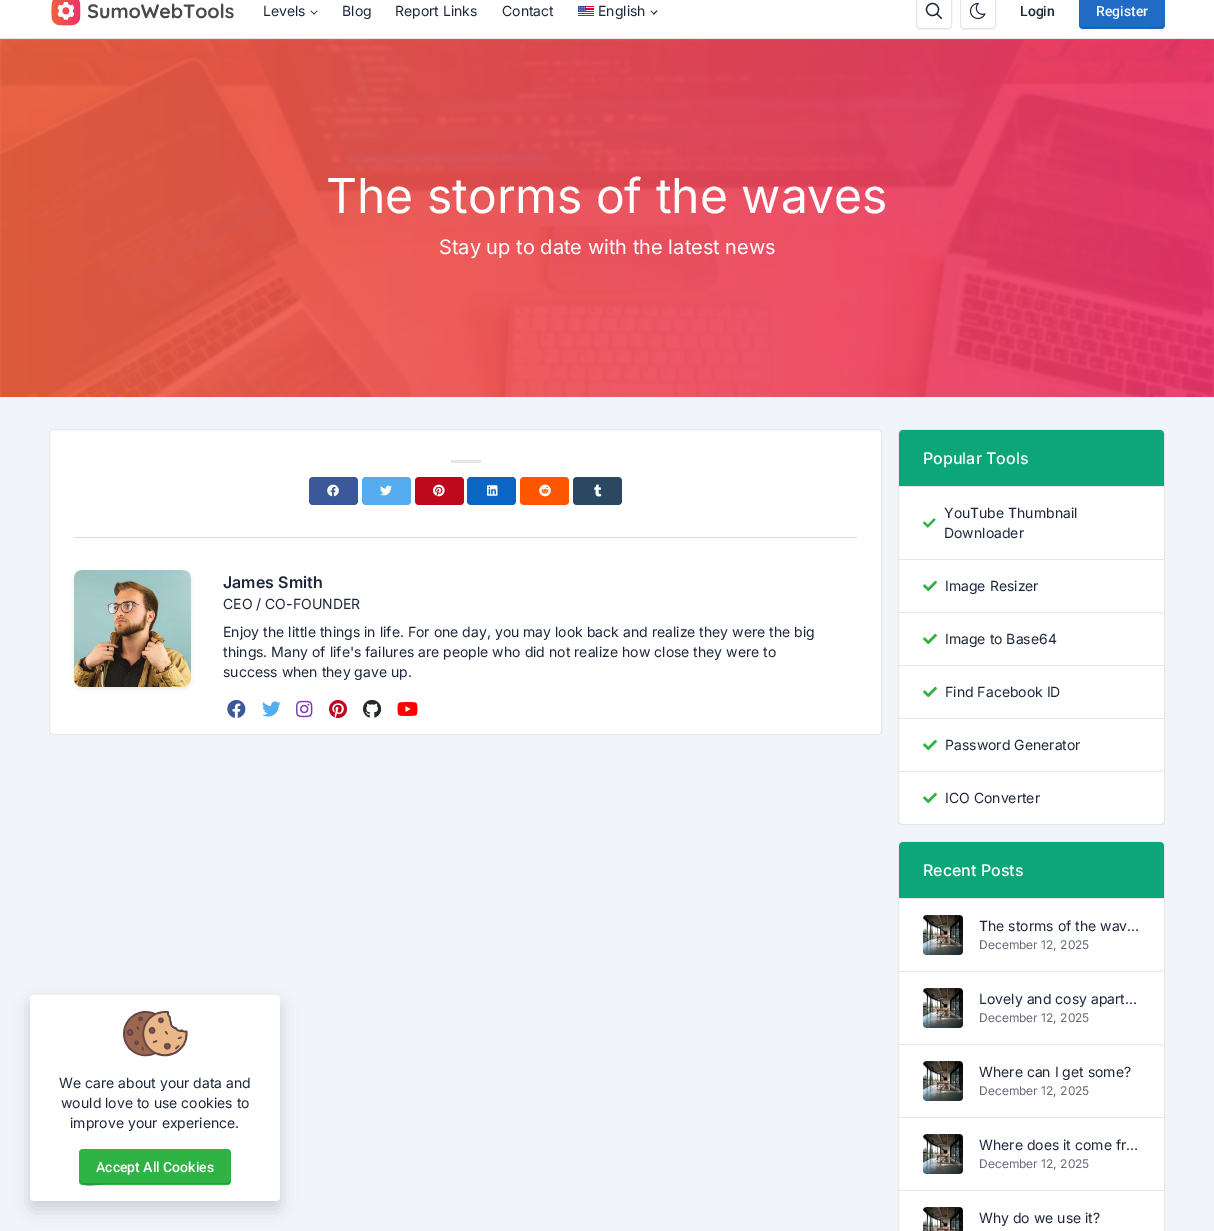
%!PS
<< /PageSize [1214 1231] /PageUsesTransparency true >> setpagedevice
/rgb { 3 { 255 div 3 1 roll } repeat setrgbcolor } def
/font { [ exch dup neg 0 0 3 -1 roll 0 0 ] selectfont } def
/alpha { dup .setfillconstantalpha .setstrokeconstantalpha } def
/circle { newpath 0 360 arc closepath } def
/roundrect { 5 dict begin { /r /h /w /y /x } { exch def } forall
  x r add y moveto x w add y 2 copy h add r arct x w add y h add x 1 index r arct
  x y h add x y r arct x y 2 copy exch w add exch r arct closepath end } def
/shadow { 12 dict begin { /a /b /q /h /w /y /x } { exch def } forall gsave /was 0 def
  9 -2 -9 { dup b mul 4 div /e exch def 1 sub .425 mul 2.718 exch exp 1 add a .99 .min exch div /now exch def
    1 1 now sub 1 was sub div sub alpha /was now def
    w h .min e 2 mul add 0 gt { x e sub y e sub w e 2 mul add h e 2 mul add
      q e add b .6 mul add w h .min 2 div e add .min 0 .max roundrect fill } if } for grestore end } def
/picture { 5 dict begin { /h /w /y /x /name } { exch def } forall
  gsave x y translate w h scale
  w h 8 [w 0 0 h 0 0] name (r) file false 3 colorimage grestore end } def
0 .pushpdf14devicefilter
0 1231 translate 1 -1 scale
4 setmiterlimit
241 245 249 rgb
0 0 1214 1231 rectfill
255 255 255 rgb
0 0 1214 38 rectfill
230 231 233 rgb
0 38 1214 1 rectfill
(img/1.rgb) 51 0 183 26 picture
29 39 59 rgb
313.5 14 moveto 317 10.5 lineto 317.5 11 lineto 314 14.5 lineto closepath fill
310.5 11 moveto 311 10.5 lineto 314.5 14 lineto 314 14.5 lineto closepath fill
(img/2.rgb) 578 6 16 10 picture
653 14 moveto 656.5 10.5 lineto 657.5 11 lineto 654 14.5 lineto closepath fill
650.5 11 moveto 651 10.5 lineto 654.5 14 lineto 654 14.5 lineto closepath fill
246 246 247 rgb
916 25 moveto 916 31 920 30 924.5 30 curveto 943.5 30 lineto 948 30 952 31 952 25 curveto 952 27 950 29 948 29 curveto 920 29 lineto 918 29 916 27 916 25 curveto closepath fill
230 231 233 rgb
916.5 -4.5 35 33 3.5 roundrect stroke
29 39 59 rgb
1.2 setlinewidth
932.5 9.5 6 circle stroke
1 setlinecap
1 setlinejoin
941.5 18.5 moveto 936.5 13.5 lineto stroke
246 246 247 rgb
960 25 moveto 960 31 964 30 968.5 30 curveto 987.5 30 lineto 992 30 996 31 996 25 curveto 996 27 994 29 992 29 curveto 964 29 lineto 962 29 960 27 960 25 curveto closepath fill
230 231 233 rgb
1 setlinewidth
0 setlinecap
0 setlinejoin
960.5 -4.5 35 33 3.5 roundrect stroke
(img/3.rgb) 969 2 17 18 picture
246 246 247 rgb
1079 25 moveto 1079 33 1091 30 1096 30 curveto 1148 30 lineto 1153 30 1165 33 1165 25 curveto 1165 27 1163 29 1161 29 curveto 1083 29 lineto 1081 29 1079 27 1079 25 curveto closepath fill
32 107 196 rgb
1079 -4 86 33 4 roundrect fill
31 93 169 rgb
1080 24 moveto 1080 31 1092 28 1096 28 curveto 1148 28 lineto 1152 28 1164 31 1164 24 curveto 1164 26 1163 27 1161 27 curveto 1083 27 lineto 1081 27 1080 26 1080 24 curveto closepath fill
0 0 0 rgb
30 1003 250 206 4 8 0.15 shadow
255 255 255 rgb
30 995 250 206 4 roundrect fill
(img/4.rgb) 123 1011 65 46 picture
246 246 247 rgb
79 1181 moveto 79 1183 80 1185 82 1186 curveto 227 1186 lineto 230 1186 231 1184 231 1181 curveto 230 1184 lineto 227 1185 lineto 83 1185 lineto 81 1185 79 1183 79 1181 curveto closepath fill
47 179 68 rgb
79 1149 152 36 4 roundrect fill
43 151 66 rgb
80 1180 moveto 80 1189 99 1184 107 1184 curveto 228 1184 lineto 230 1183 230 1182 230 1180 curveto 230 1182 229 1183 227 1183 curveto 83 1183 lineto 81 1183 80 1182 80 1180 curveto closepath fill
248 250 252 rgb
0 39 1214 358 rectfill
(img/5.rgb) 0 39 1214 358 picture
0.9 alpha
gsave 0 39 moveto 1214 39 lineto 1214 397 lineto 0 397 lineto closepath clip newpath
<< /ShadingType 2 /ColorSpace /DeviceRGB /Coords [1214 218 0 218] /Extend [true true] /Function << /FunctionType 2 /Domain [0 1] /C0 [0.929 0.196 0.412] /C1 [0.941 0.373 0.243] /N 1 >> >> shfill grestore
1 alpha
255 255 255 rgb
49.5 429.5 832 305 3.5 roundrect gsave fill grestore
230 231 233 rgb
stroke
230 230 230 rgb
451 460 30 3 rectfill
59 89 152 rgb
309 477 49 28 4 roundrect fill
(img/6.rgb) 327 484 12 13 picture
85 172 238 rgb
362 477 49 28 4 roundrect fill
(img/7.rgb) 380 485 12 11 picture
189 8 28 rgb
415 477 49 28 4 roundrect fill
(img/8.rgb) 433 484 12 13 picture
10 102 194 rgb
467 477 49 28 4 roundrect fill
(img/9.rgb) 487 485 11 11 picture
255 87 0 rgb
520 477 49 28 4 roundrect fill
(img/10.rgb) 539 484 12 13 picture
44 71 98 rgb
573 477 49 28 4 roundrect fill
(img/11.rgb) 594 484 8 13 picture
219 220 224 rgb
74 537 783 1 rectfill
0 0 0 rgb
74 572 117 117 8 2 0.07 shadow
(img/12.rgb) 74 570 117 117 picture
(img/13.rgb) 227 700 19 18 picture
(img/14.rgb) 262 701 19 16 picture
(img/15.rgb) 296 700 17 18 picture
(img/16.rgb) 329 700 19 18 picture
(img/17.rgb) 363 700 19 18 picture
(img/18.rgb) 397 702 21 14 picture
255 255 255 rgb
898.5 429.5 266 395 3.5 roundrect gsave fill grestore
230 231 233 rgb
stroke
12 166 120 rgb
903 430 moveto 1160 430 lineto 1162 430 1164 432 1164 434 curveto 1164 487 lineto 899 487 lineto 899 434 lineto 899 432 901 430 903 430 curveto closepath fill
230 231 233 rgb
899 486 265 1 rectfill
899 559 265 1 rectfill
(img/19.rgb) 923 518 13 10 picture
899 612 265 1 rectfill
(img/20.rgb) 923 580 14 12 picture
899 665 265 1 rectfill
(img/20.rgb) 923 633 14 12 picture
899 718 265 1 rectfill
(img/20.rgb) 923 686 14 12 picture
899 771 265 1 rectfill
(img/20.rgb) 923 739 14 12 picture
(img/20.rgb) 923 792 14 12 picture
255 255 255 rgb
898.5 841.5 266 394 3.5 roundrect gsave fill grestore
230 231 233 rgb
stroke
12 166 120 rgb
903 842 moveto 1160 842 lineto 1162 842 1164 844 1164 846 curveto 1164 899 lineto 899 899 lineto 899 846 lineto 899 844 901 842 903 842 curveto closepath fill
230 231 233 rgb
899 898 265 1 rectfill
899 971 265 1 rectfill
(img/21.rgb) 923 915 40 40 picture
899 1044 265 1 rectfill
(img/21.rgb) 923 988 40 40 picture
899 1117 265 1 rectfill
(img/21.rgb) 923 1061 40 40 picture
899 1190 265 1 rectfill
(img/21.rgb) 923 1134 40 40 picture
(img/22.rgb) 923 1207 40 24 picture
/Inter-Regular 14 font
29 39 59 rgb
[
  [(Levels) 263 16]
  [(Blog) 342 16]
  [(Report Links) 395 16]
  [(Contact) 502 16]
  [(English) 598 16]
] { aload pop moveto show } forall
/Roboto-Medium 14 font
1020 16 moveto (Login) show
248 250 252 rgb
1096 16 moveto (Register) show
/Inter-Regular 14 font
29 39 59 rgb
[
  [(We care about your data and) 59 1088]
  [(would love to use cookies to) 61 1108]
  [(improve your experience.) 70 1128]
] { aload pop moveto show } forall
/Roboto-Medium 14 font
255 255 255 rgb
96 1172 moveto (Accept All Cookies) show
/Inter-Regular 48 font
326 213 moveto (The storms of the waves) show
/Inter-Regular 20 font
439 254 moveto (Stay up to date with the latest news) show
/Inter-SemiBold 16 font
29 39 59 rgb
223 588 moveto (James Smith) show
/Inter-Regular 14 font
[
  [(CEO / CO-FOUNDER) 223 609]
  [(Enjoy the little things in life. For one day, you may look back and realize they were the big) 223 637]
  [(things. Many of life's failures are people who did not realize how close they were to) 223 657]
  [(success when they gave up.) 223 677]
] { aload pop moveto show } forall
/Inter-Medium 16 font
255 255 255 rgb
923 464 moveto (Popular Tools) show
/Inter-Regular 14 font
29 39 59 rgb
[
  [(YouTube Thumbnail) 944 518]
  [(Downloader) 944 538]
  [(Image Resizer) 945 591]
  [(Image to Base64) 945 644]
  [(Find Facebook ID) 945 697]
  [(Password Generator) 945 750]
  [(ICO Converter) 945 803]
] { aload pop moveto show } forall
/Inter-Medium 16 font
255 255 255 rgb
923 876 moveto (Recent Posts) show
/Inter-Regular 14 font
29 39 59 rgb
979 931 moveto (The storms of the wav…) show
/Inter-Regular 12 font
97 104 118 rgb
979 949 moveto (December 12, 2025) show
/Inter-Regular 14 font
29 39 59 rgb
979 1004 moveto (Lovely and cosy apart…) show
/Inter-Regular 12 font
97 104 118 rgb
979 1022 moveto (December 12, 2025) show
/Inter-Regular 14 font
29 39 59 rgb
979 1077 moveto (Where can I get some?) show
/Inter-Regular 12 font
97 104 118 rgb
979 1095 moveto (December 12, 2025) show
/Inter-Regular 14 font
29 39 59 rgb
979 1150 moveto (Where does it come fr…) show
/Inter-Regular 12 font
97 104 118 rgb
979 1168 moveto (December 12, 2025) show
/Inter-Regular 14 font
29 39 59 rgb
979 1223 moveto (Why do we use it?) show
.poppdf14devicefilter showpage
